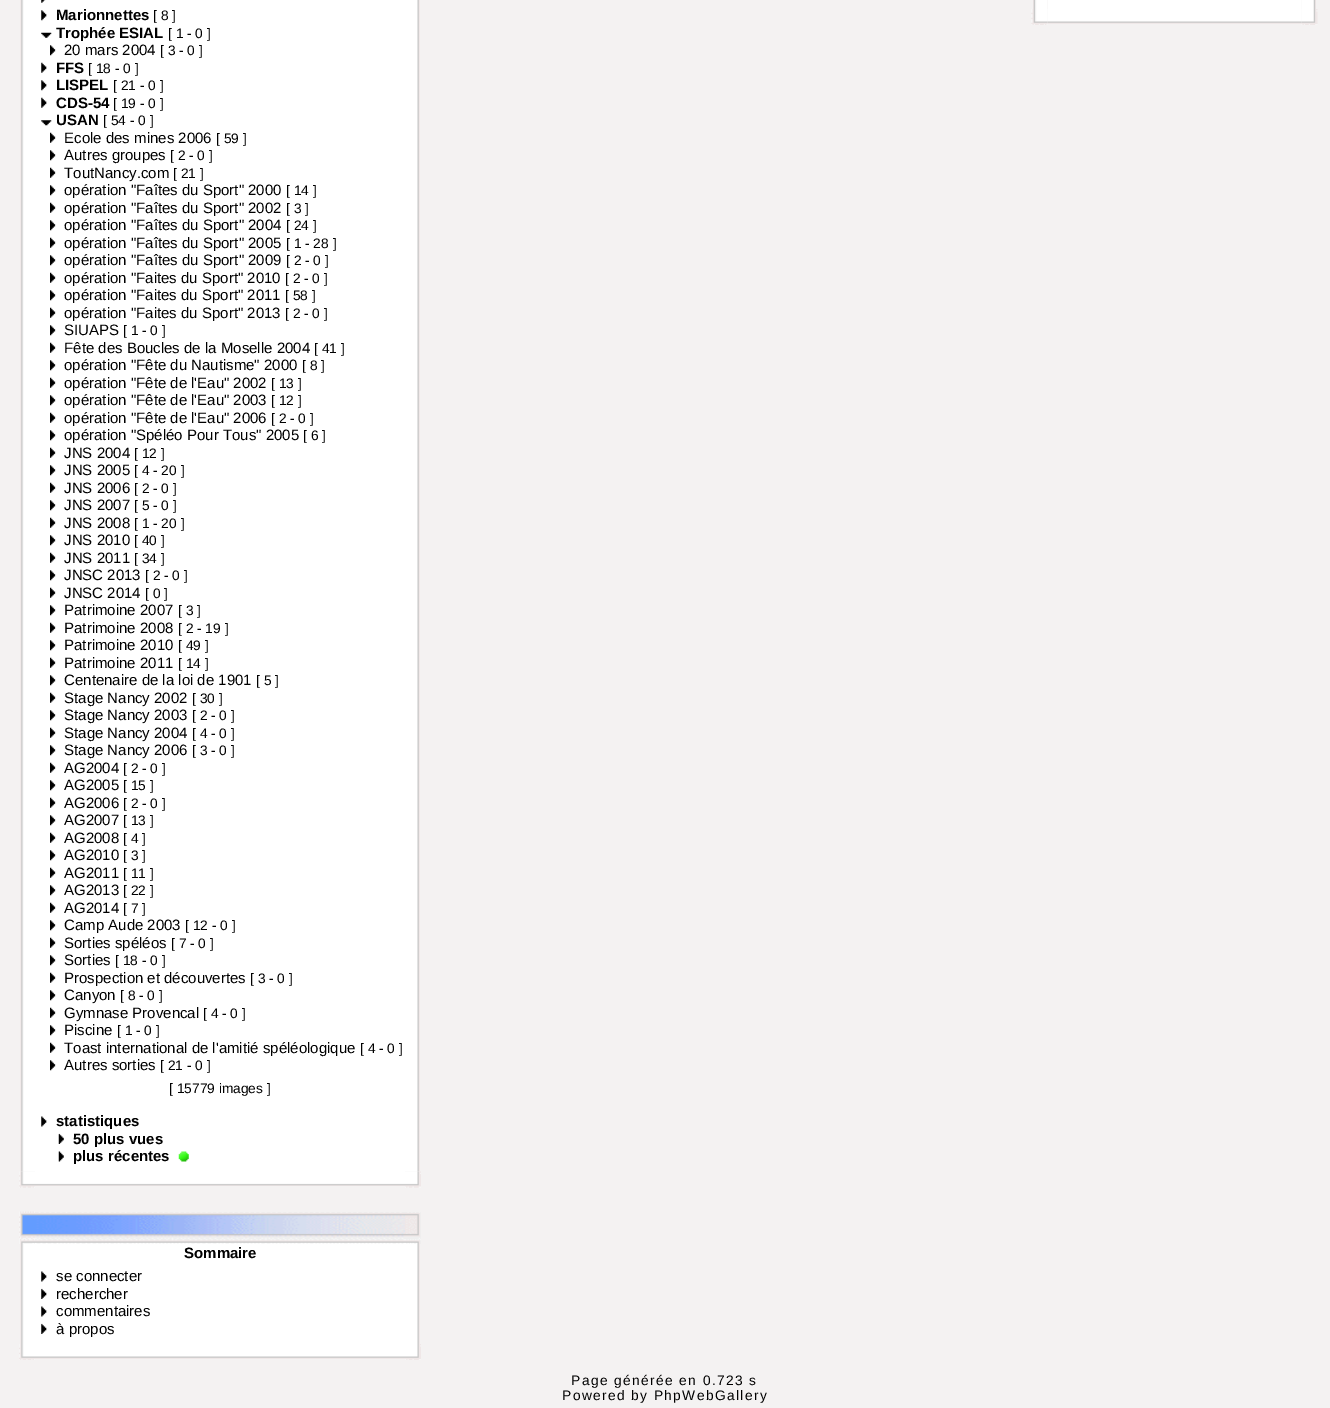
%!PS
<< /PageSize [1330 1408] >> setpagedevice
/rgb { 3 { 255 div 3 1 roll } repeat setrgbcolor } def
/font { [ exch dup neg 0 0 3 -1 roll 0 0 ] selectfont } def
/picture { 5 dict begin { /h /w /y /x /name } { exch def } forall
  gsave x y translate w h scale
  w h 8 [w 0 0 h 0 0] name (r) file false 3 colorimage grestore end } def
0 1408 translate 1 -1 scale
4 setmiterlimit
244 242 242 rgb
0 0 1330 1408 rectfill
(img/1.rgb) 20 0 15 1172 picture
255 255 255 rgb
35 0 370 1172 rectfill
(img/2.rgb) 41 0 5 3 picture
(img/3.rgb) 41 10 6 11 picture
(img/4.rgb) 41 32 11 6 picture
(img/5.rgb) 50 45 6 11 picture
(img/6.rgb) 41 62 6 11 picture
(img/3.rgb) 41 80 6 11 picture
(img/6.rgb) 41 97 6 11 picture
(img/7.rgb) 41 120 11 6 picture
(img/8.rgb) 50 132 6 11 picture
(img/5.rgb) 50 150 6 11 picture
(img/8.rgb) 50 167 6 11 picture
(img/5.rgb) 50 185 6 11 picture
(img/8.rgb) 50 202 6 11 picture
(img/5.rgb) 50 220 6 11 picture
(img/8.rgb) 50 237 6 11 picture
(img/5.rgb) 50 255 6 11 picture
(img/8.rgb) 50 272 6 11 picture
(img/9.rgb) 50 290 6 11 picture
(img/8.rgb) 50 307 6 11 picture
(img/5.rgb) 50 325 6 11 picture
(img/8.rgb) 50 342 6 11 picture
(img/5.rgb) 50 360 6 11 picture
(img/8.rgb) 50 377 6 11 picture
(img/5.rgb) 50 395 6 11 picture
(img/8.rgb) 50 412 6 11 picture
(img/5.rgb) 50 430 6 11 picture
(img/8.rgb) 50 447 6 11 picture
(img/5.rgb) 50 465 6 11 picture
(img/10.rgb) 50 482 6 11 picture
(img/5.rgb) 50 500 6 11 picture
(img/8.rgb) 50 517 6 11 picture
(img/5.rgb) 50 535 6 11 picture
(img/8.rgb) 50 552 6 11 picture
(img/5.rgb) 50 570 6 11 picture
(img/8.rgb) 50 587 6 11 picture
(img/5.rgb) 50 605 6 11 picture
(img/8.rgb) 50 622 6 11 picture
(img/5.rgb) 50 640 6 11 picture
(img/8.rgb) 50 657 6 11 picture
(img/5.rgb) 50 675 6 11 picture
(img/8.rgb) 50 692 6 11 picture
(img/5.rgb) 50 710 6 11 picture
(img/10.rgb) 50 727 6 11 picture
(img/5.rgb) 50 745 6 11 picture
(img/8.rgb) 50 762 6 11 picture
(img/5.rgb) 50 780 6 11 picture
(img/8.rgb) 50 797 6 11 picture
(img/5.rgb) 50 815 6 11 picture
(img/8.rgb) 50 832 6 11 picture
(img/5.rgb) 50 850 6 11 picture
(img/8.rgb) 50 867 6 11 picture
(img/5.rgb) 50 885 6 11 picture
(img/8.rgb) 50 902 6 11 picture
(img/5.rgb) 50 920 6 11 picture
(img/8.rgb) 50 937 6 11 picture
(img/5.rgb) 50 955 6 11 picture
(img/8.rgb) 50 972 6 11 picture
(img/5.rgb) 50 990 6 11 picture
(img/8.rgb) 50 1007 6 11 picture
(img/5.rgb) 50 1025 6 11 picture
(img/8.rgb) 50 1042 6 11 picture
(img/5.rgb) 50 1060 6 11 picture
(img/11.rgb) 41 1116 6 11 picture
(img/12.rgb) 58 1133 6 11 picture
(img/13.rgb) 58 1151 6 11 picture
(img/14.rgb) 178 1151 11 11 picture
(img/15.rgb) 405 0 15 1172 picture
(img/16.rgb) 19 1171 16 17 picture
(img/17.rgb) 35 1172 370 14 picture
(img/18.rgb) 405 1171 16 17 picture
(img/19.rgb) 19 1211 16 33 picture
(img/20.rgb) 35 1212 370 32 picture
(img/21.rgb) 405 1212 16 32 picture
(img/22.rgb) 20 1244 15 100 picture
35 1244 370 100 rectfill
(img/11.rgb) 41 1271 6 11 picture
(img/23.rgb) 41 1288 6 11 picture
(img/11.rgb) 41 1306 6 11 picture
(img/23.rgb) 41 1323 6 11 picture
(img/24.rgb) 405 1244 15 100 picture
(img/25.rgb) 19 1344 16 16 picture
(img/26.rgb) 35 1344 370 15 picture
(img/27.rgb) 405 1344 16 16 picture
(img/28.rgb) 1033 0 15 9 picture
1048 0 253 9 rectfill
(img/29.rgb) 1301 0 15 9 picture
(img/30.rgb) 1031 9 17 16 picture
(img/31.rgb) 1047 9 255 15 picture
(img/32.rgb) 1301 9 17 16 picture
/LiberationSans-Bold 15 font
0 0 0 rgb
56 20 moveto (Marionnettes) show
/LiberationSans-Regular 13.75 font
153 20 moveto ([ 8 ]) show
/LiberationSans-Bold 15 font
56 38 moveto (Trophée ESIAL) show
/LiberationSans-Regular 13.75 font
168 38 moveto ([ 1 - 0 ]) show
/LiberationSans-Regular 15 font
64 55 moveto (20 mars 2004) show
/LiberationSans-Regular 13.75 font
160 55 moveto ([ 3 - 0 ]) show
/LiberationSans-Bold 15 font
56 73 moveto (FFS) show
/LiberationSans-Regular 13.75 font
88 73 moveto ([ 18 - 0 ]) show
/LiberationSans-Bold 15 font
56 90 moveto (LISPEL) show
/LiberationSans-Regular 13.75 font
113 90 moveto ([ 21 - 0 ]) show
/LiberationSans-Bold 15 font
56 108 moveto (CDS-54) show
/LiberationSans-Regular 13.75 font
113 108 moveto ([ 19 - 0 ]) show
/LiberationSans-Bold 15 font
56 125 moveto (USAN) show
/LiberationSans-Regular 13.75 font
103 125 moveto ([ 54 - 0 ]) show
/LiberationSans-Regular 15 font
64 143 moveto (Ecole des mines 2006) show
/LiberationSans-Regular 13.75 font
216 143 moveto ([ 59 ]) show
/LiberationSans-Regular 15 font
64 160 moveto (Autres groupes) show
/LiberationSans-Regular 13.75 font
170 160 moveto ([ 2 - 0 ]) show
/LiberationSans-Regular 15 font
64 178 moveto (ToutNancy.com) show
/LiberationSans-Regular 13.75 font
173 178 moveto ([ 21 ]) show
/LiberationSans-Regular 15 font
64 195 moveto (opération "Faîtes du Sport" 2000) show
/LiberationSans-Regular 13.75 font
286 195 moveto ([ 14 ]) show
/LiberationSans-Regular 15 font
64 213 moveto (opération "Faîtes du Sport" 2002) show
/LiberationSans-Regular 13.75 font
286 213 moveto ([ 3 ]) show
/LiberationSans-Regular 15 font
64 230 moveto (opération "Faîtes du Sport" 2004) show
/LiberationSans-Regular 13.75 font
286 230 moveto ([ 24 ]) show
/LiberationSans-Regular 15 font
64 248 moveto (opération "Faîtes du Sport" 2005) show
/LiberationSans-Regular 13.75 font
286 248 moveto ([ 1 - 28 ]) show
/LiberationSans-Regular 15 font
64 265 moveto (opération "Faîtes du Sport" 2009) show
/LiberationSans-Regular 13.75 font
286 265 moveto ([ 2 - 0 ]) show
/LiberationSans-Regular 15 font
64 283 moveto (opération "Faites du Sport" 2010) show
/LiberationSans-Regular 13.75 font
285 283 moveto ([ 2 - 0 ]) show
/LiberationSans-Regular 15 font
64 300 moveto (opération "Faites du Sport" 2011) show
/LiberationSans-Regular 13.75 font
285 300 moveto ([ 58 ]) show
/LiberationSans-Regular 15 font
64 318 moveto (opération "Faites du Sport" 2013) show
/LiberationSans-Regular 13.75 font
285 318 moveto ([ 2 - 0 ]) show
/LiberationSans-Regular 15 font
64 335 moveto (SIUAPS) show
/LiberationSans-Regular 13.75 font
123 335 moveto ([ 1 - 0 ]) show
/LiberationSans-Regular 15 font
64 353 moveto (Fête des Boucles de la Moselle 2004) show
/LiberationSans-Regular 13.75 font
314 353 moveto ([ 41 ]) show
/LiberationSans-Regular 15 font
64 370 moveto (opération "Fête du Nautisme" 2000) show
/LiberationSans-Regular 13.75 font
302 370 moveto ([ 8 ]) show
/LiberationSans-Regular 15 font
64 388 moveto (opération "Fête de l'Eau" 2002) show
/LiberationSans-Regular 13.75 font
271 388 moveto ([ 13 ]) show
/LiberationSans-Regular 15 font
64 405 moveto (opération "Fête de l'Eau" 2003) show
/LiberationSans-Regular 13.75 font
271 405 moveto ([ 12 ]) show
/LiberationSans-Regular 15 font
64 423 moveto (opération "Fête de l'Eau" 2006) show
/LiberationSans-Regular 13.75 font
271 423 moveto ([ 2 - 0 ]) show
/LiberationSans-Regular 15 font
64 440 moveto (opération "Spéléo Pour Tous" 2005) show
/LiberationSans-Regular 13.75 font
303 440 moveto ([ 6 ]) show
/LiberationSans-Regular 15 font
64 458 moveto (JNS 2004) show
/LiberationSans-Regular 13.75 font
134 458 moveto ([ 12 ]) show
/LiberationSans-Regular 15 font
64 475 moveto (JNS 2005) show
/LiberationSans-Regular 13.75 font
134 475 moveto ([ 4 - 20 ]) show
/LiberationSans-Regular 15 font
64 493 moveto (JNS 2006) show
/LiberationSans-Regular 13.75 font
134 493 moveto ([ 2 - 0 ]) show
/LiberationSans-Regular 15 font
64 510 moveto (JNS 2007) show
/LiberationSans-Regular 13.75 font
134 510 moveto ([ 5 - 0 ]) show
/LiberationSans-Regular 15 font
64 528 moveto (JNS 2008) show
/LiberationSans-Regular 13.75 font
134 528 moveto ([ 1 - 20 ]) show
/LiberationSans-Regular 15 font
64 545 moveto (JNS 2010) show
/LiberationSans-Regular 13.75 font
134 545 moveto ([ 40 ]) show
/LiberationSans-Regular 15 font
64 563 moveto (JNS 2011) show
/LiberationSans-Regular 13.75 font
134 563 moveto ([ 34 ]) show
/LiberationSans-Regular 15 font
64 580 moveto (JNSC 2013) show
/LiberationSans-Regular 13.75 font
145 580 moveto ([ 2 - 0 ]) show
/LiberationSans-Regular 15 font
64 598 moveto (JNSC 2014) show
/LiberationSans-Regular 13.75 font
145 598 moveto ([ 0 ]) show
/LiberationSans-Regular 15 font
64 615 moveto (Patrimoine 2007) show
/LiberationSans-Regular 13.75 font
178 615 moveto ([ 3 ]) show
/LiberationSans-Regular 15 font
64 633 moveto (Patrimoine 2008) show
/LiberationSans-Regular 13.75 font
178 633 moveto ([ 2 - 19 ]) show
/LiberationSans-Regular 15 font
64 650 moveto (Patrimoine 2010) show
/LiberationSans-Regular 13.75 font
178 650 moveto ([ 49 ]) show
/LiberationSans-Regular 15 font
64 668 moveto (Patrimoine 2011) show
/LiberationSans-Regular 13.75 font
178 668 moveto ([ 14 ]) show
/LiberationSans-Regular 15 font
64 685 moveto (Centenaire de la loi de 1901) show
/LiberationSans-Regular 13.75 font
256 685 moveto ([ 5 ]) show
/LiberationSans-Regular 15 font
64 703 moveto (Stage Nancy 2002) show
/LiberationSans-Regular 13.75 font
192 703 moveto ([ 30 ]) show
/LiberationSans-Regular 15 font
64 720 moveto (Stage Nancy 2003) show
/LiberationSans-Regular 13.75 font
192 720 moveto ([ 2 - 0 ]) show
/LiberationSans-Regular 15 font
64 738 moveto (Stage Nancy 2004) show
/LiberationSans-Regular 13.75 font
192 738 moveto ([ 4 - 0 ]) show
/LiberationSans-Regular 15 font
64 755 moveto (Stage Nancy 2006) show
/LiberationSans-Regular 13.75 font
192 755 moveto ([ 3 - 0 ]) show
/LiberationSans-Regular 15 font
64 773 moveto (AG2004) show
/LiberationSans-Regular 13.75 font
123 773 moveto ([ 2 - 0 ]) show
/LiberationSans-Regular 15 font
64 790 moveto (AG2005) show
/LiberationSans-Regular 13.75 font
123 790 moveto ([ 15 ]) show
/LiberationSans-Regular 15 font
64 808 moveto (AG2006) show
/LiberationSans-Regular 13.75 font
123 808 moveto ([ 2 - 0 ]) show
/LiberationSans-Regular 15 font
64 825 moveto (AG2007) show
/LiberationSans-Regular 13.75 font
123 825 moveto ([ 13 ]) show
/LiberationSans-Regular 15 font
64 843 moveto (AG2008) show
/LiberationSans-Regular 13.75 font
123 843 moveto ([ 4 ]) show
/LiberationSans-Regular 15 font
64 860 moveto (AG2010) show
/LiberationSans-Regular 13.75 font
123 860 moveto ([ 3 ]) show
/LiberationSans-Regular 15 font
64 878 moveto (AG2011) show
/LiberationSans-Regular 13.75 font
123 878 moveto ([ 11 ]) show
/LiberationSans-Regular 15 font
64 895 moveto (AG2013) show
/LiberationSans-Regular 13.75 font
123 895 moveto ([ 22 ]) show
/LiberationSans-Regular 15 font
64 913 moveto (AG2014) show
/LiberationSans-Regular 13.75 font
123 913 moveto ([ 7 ]) show
/LiberationSans-Regular 15 font
64 930 moveto (Camp Aude 2003) show
/LiberationSans-Regular 13.75 font
185 930 moveto ([ 12 - 0 ]) show
/LiberationSans-Regular 15 font
64 948 moveto (Sorties spéléos) show
/LiberationSans-Regular 13.75 font
171 948 moveto ([ 7 - 0 ]) show
/LiberationSans-Regular 15 font
64 965 moveto (Sorties) show
/LiberationSans-Regular 13.75 font
115 965 moveto ([ 18 - 0 ]) show
/LiberationSans-Regular 15 font
64 983 moveto (Prospection et découvertes) show
/LiberationSans-Regular 13.75 font
250 983 moveto ([ 3 - 0 ]) show
/LiberationSans-Regular 15 font
64 1000 moveto (Canyon) show
/LiberationSans-Regular 13.75 font
120 1000 moveto ([ 8 - 0 ]) show
/LiberationSans-Regular 15 font
64 1018 moveto (Gymnase Provencal) show
/LiberationSans-Regular 13.75 font
203 1018 moveto ([ 4 - 0 ]) show
/LiberationSans-Regular 15 font
64 1035 moveto (Piscine) show
/LiberationSans-Regular 13.75 font
117 1035 moveto ([ 1 - 0 ]) show
/LiberationSans-Regular 15 font
64 1053 moveto (Toast international de l'amitié spéléologique) show
/LiberationSans-Regular 13.75 font
360 1053 moveto ([ 4 - 0 ]) show
/LiberationSans-Regular 15 font
64 1070 moveto (Autres sorties) show
/LiberationSans-Regular 13.75 font
160 1070 moveto ([ 21 - 0 ]) show
169 1093 moveto ([ 15779 images ]) show
/LiberationSans-Bold 15 font
[
  [(statistiques) 56 1126]
  [(50 plus vues) 73 1144]
  [(plus récentes) 73 1161]
  [(Sommaire) 184 1258]
] { aload pop moveto show } forall
/LiberationSans-Regular 15 font
[
  [(se connecter) 56 1281]
  [(rechercher) 56 1299]
  [(commentaires) 56 1316]
  [(à propos) 56 1334]
] { aload pop moveto show } forall
/LiberationSans-Regular 13.75 font
571 1385 moveto 1.4 0 (Page générée en 0.723 s) ashow
562 1400 moveto 1.4 0 (Powered by PhpWebGallery) ashow
showpage
